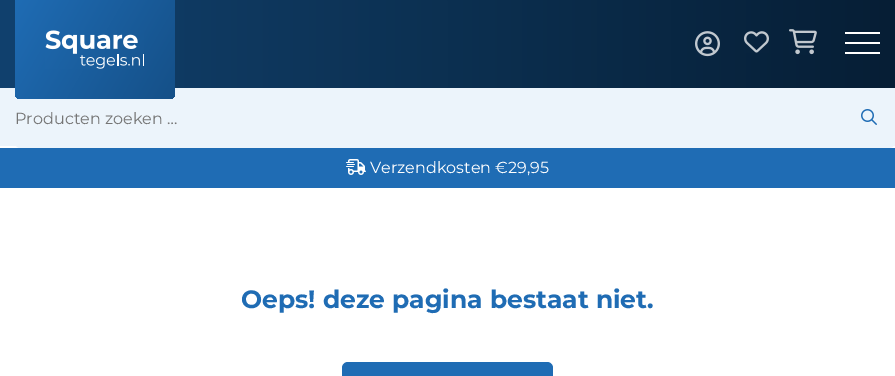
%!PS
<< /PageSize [895 376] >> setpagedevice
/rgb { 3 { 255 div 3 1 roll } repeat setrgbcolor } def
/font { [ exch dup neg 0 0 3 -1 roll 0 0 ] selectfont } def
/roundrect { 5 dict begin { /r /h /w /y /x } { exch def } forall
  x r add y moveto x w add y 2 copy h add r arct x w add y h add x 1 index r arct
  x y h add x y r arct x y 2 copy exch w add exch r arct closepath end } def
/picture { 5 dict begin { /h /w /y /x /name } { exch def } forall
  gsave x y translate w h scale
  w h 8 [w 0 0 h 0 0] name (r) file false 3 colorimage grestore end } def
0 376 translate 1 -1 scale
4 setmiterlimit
255 255 255 rgb
0 0 895 376 rectfill
gsave 0 0 moveto 895 0 lineto 895 88 lineto 0 88 lineto closepath clip newpath
<< /ShadingType 2 /ColorSpace /DeviceRGB /Coords [0 94 895 94] /Extend [true true] /Function << /FunctionType 2 /Domain [0 1] /C0 [0.067 0.255 0.431] /C1 [0.024 0.118 0.208] /N 1 >> >> shfill grestore
236 244 251 rgb
0 88 895 58 rectfill
15 88 880 60 6 roundrect fill
21 88 moveto 837 88 lineto 837 148 lineto 21 148 lineto 17.5 148 15 145.5 15 142 curveto 15 94 lineto 15 90.5 17.5 88 21 88 curveto closepath fill
gsave 15 0 moveto 175 0 lineto 175 93 lineto 175 96.5 172.5 99 169 99 curveto 21 99 lineto 17.5 99 15 96.5 15 93 curveto closepath clip newpath
<< /ShadingType 2 /ColorSpace /DeviceRGB /Coords [14 2.5 176 97] /Extend [true true] /Function << /FunctionType 2 /Domain [0 1] /C0 [0.122 0.424 0.706] /C1 [0.082 0.314 0.533] /N 1 >> >> shfill grestore
(img/1.rgb) 45 30 99 39 picture
(img/2.rgb) 695 31 25 26 picture
(img/3.rgb) 744 31 25 22 picture
(img/4.rgb) 789 29 28 26 picture
[
  [845 32 35 2 255 255 255]
  [845 42 35 2 255 255 255]
  [845 52 35 2 255 255 255]
] { aload pop rgb rectfill } forall
(img/5.rgb) 861 109 16 16 picture
31 108 180 rgb
0 148 895 40 rectfill
(img/6.rgb) 346 159 20 16 picture
342 362 211 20 6 roundrect fill
/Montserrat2-Thin 16 font
117 117 117 rgb
15 124 moveto (Producten zoeken …) show
255 255 255 rgb
370 173 moveto (Verzendkosten €29,95) show
/Montserrat-Thin 25 font
31 108 180 rgb
241 308 moveto (Oeps! deze pagina bestaat niet.) show
showpage
